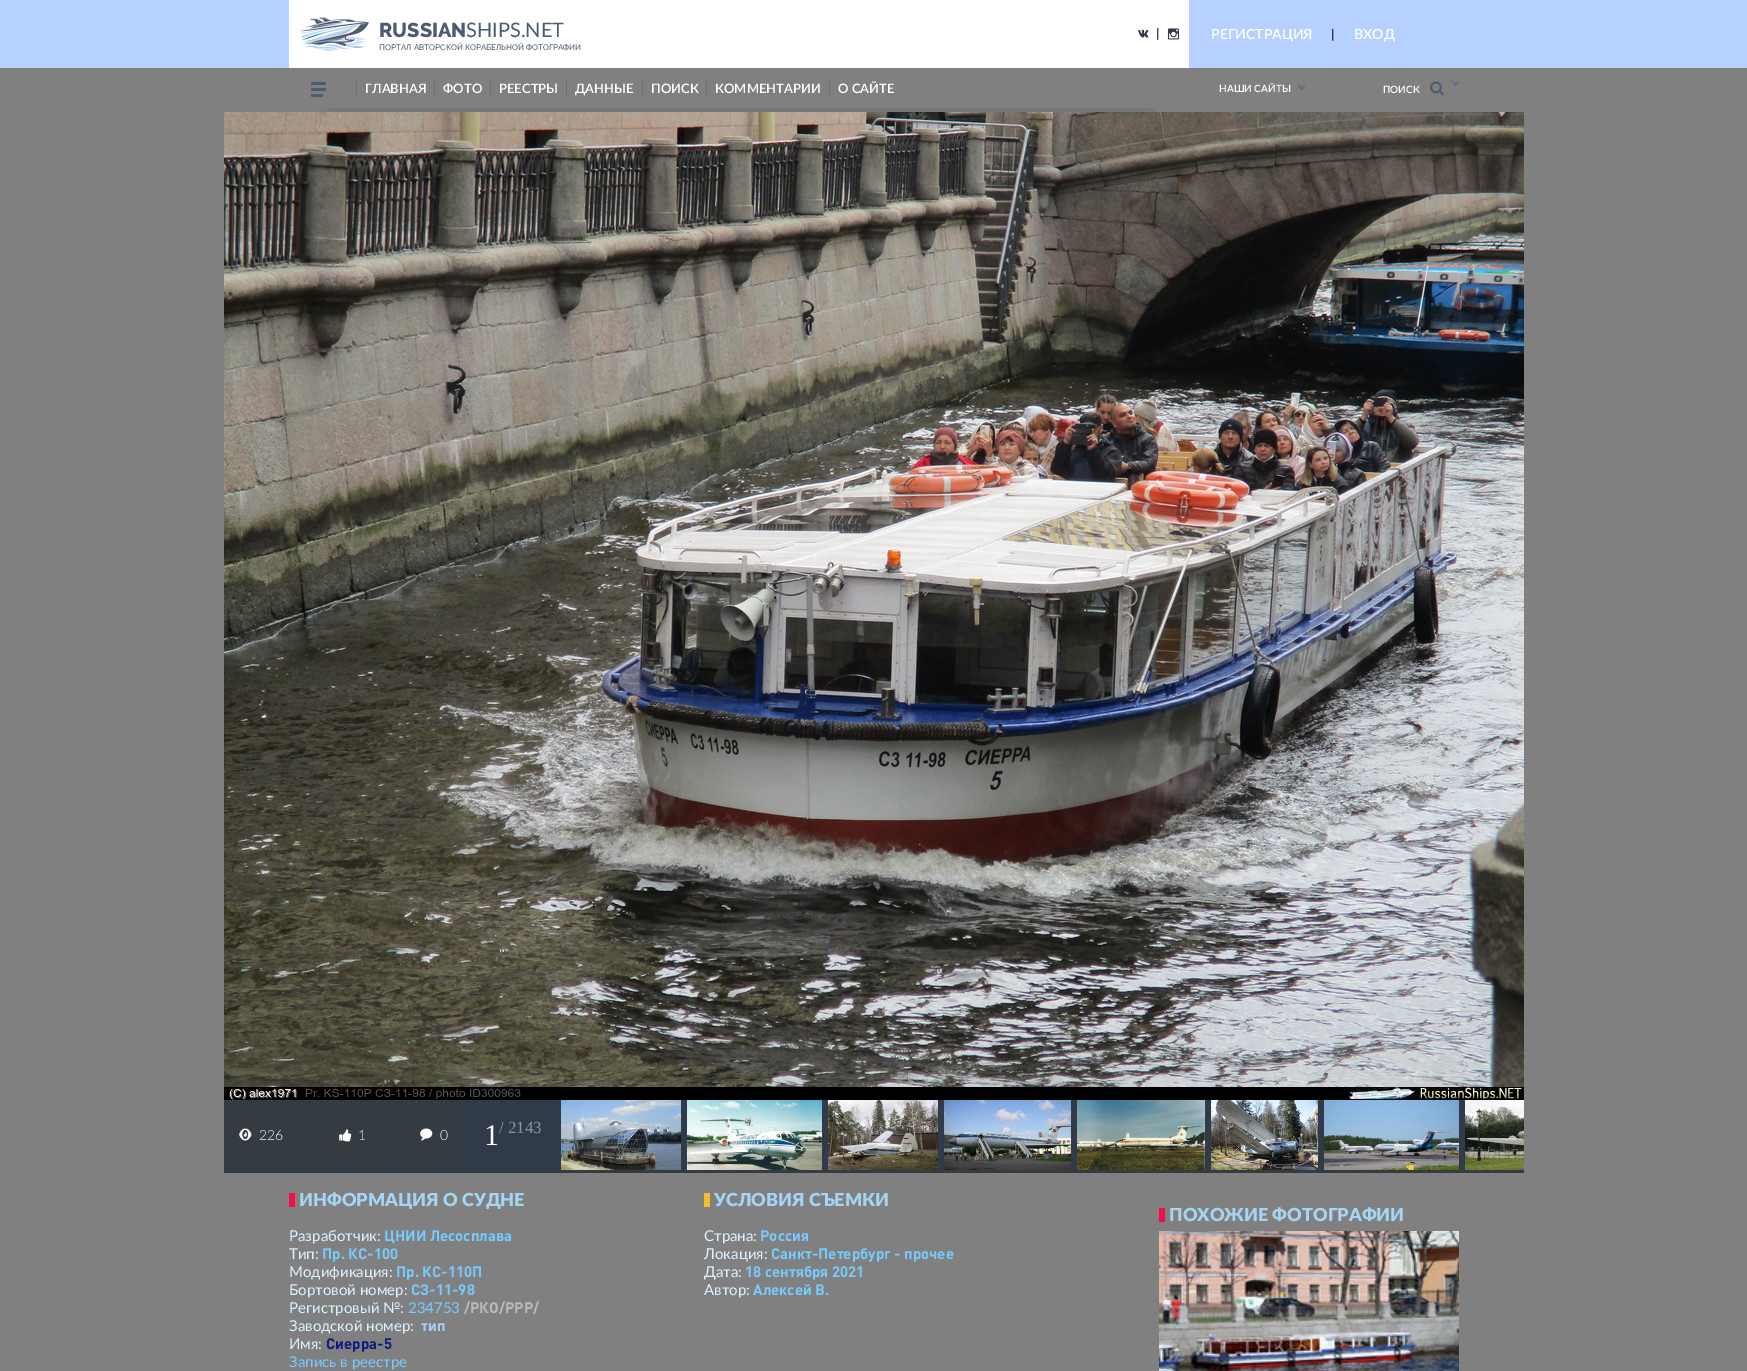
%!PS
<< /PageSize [1747 1371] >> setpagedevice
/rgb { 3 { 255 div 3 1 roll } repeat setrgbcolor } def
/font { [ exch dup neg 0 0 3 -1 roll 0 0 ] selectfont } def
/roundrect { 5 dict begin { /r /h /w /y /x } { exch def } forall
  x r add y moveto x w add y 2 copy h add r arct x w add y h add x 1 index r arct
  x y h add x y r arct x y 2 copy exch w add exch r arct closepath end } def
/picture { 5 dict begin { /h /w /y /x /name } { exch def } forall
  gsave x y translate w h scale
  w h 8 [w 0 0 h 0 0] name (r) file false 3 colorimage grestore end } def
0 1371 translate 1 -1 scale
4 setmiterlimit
128 128 128 rgb
0 0 1747 1371 rectfill
182 209 255 rgb
0 0 1747 68 rectfill
255 255 255 rgb
289 0 900 68 rectfill
(img/1.rgb) 299 17 70 34 picture
(img/2.rgb) 1138 29 11 9 picture
(img/3.rgb) 1167 28 12 12 picture
76 91 114 rgb
311 82 15 3 1.5 roundrect fill
311 88 15 3 1.5 roundrect fill
311 94 12 3 1.5 roundrect fill
[
  [356 80 1 16 107 113 122]
  [434 80 1 16 107 113 122]
  [490 80 1 16 107 113 122]
  [566 80 1 16 107 113 122]
  [642 80 1 16 107 113 122]
  [706 80 1 16 107 113 122]
  [829 80 1 16 107 113 122]
] { aload pop rgb rectfill } forall
(img/4.rgb) 321 108 836 4 picture
(img/5.rgb) 1298 85 7 5 picture
(img/6.rgb) 1430 81 14 15 picture
(img/5.rgb) 1452 81 7 5 picture
(img/7.rgb) 224 112 1300 988 picture
49 58 73 rgb
464 1100 1001 70 rectfill
52 59 65 rgb
224 1100 240 70 rectfill
(img/8.rgb) 239 1128 13 13 picture
(img/9.rgb) 339 1129 13 13 picture
(img/10.rgb) 420 1128 13 13 picture
(img/11.rgb) 561 1100 120 70 picture
(img/12.rgb) 687 1100 135 70 picture
(img/13.rgb) 828 1100 110 70 picture
(img/14.rgb) 944 1100 127 70 picture
(img/15.rgb) 1077 1100 128 70 picture
(img/16.rgb) 1211 1100 107 70 picture
(img/17.rgb) 1324 1100 135 70 picture
(img/18.rgb) 1465 1100 59 70 picture
[
  [224 1170 1300 3 52 59 65]
  [289 1193 6 14 245 12 77]
  [704 1193 6 14 246 191 47]
  [1159 1208 6 14 245 12 77]
] { aload pop rgb rectfill } forall
(img/19.rgb) 1159 1231 300 140 picture
/Raleway-ExtraBold 20 font
77 92 115 rgb
379 37 moveto (RUSSIAN) show
/Lato-Regular 20 font
466 37 moveto (SHIPS.NET) show
/Raleway-Medium 8 font
379 50 moveto (ПОРТАЛ АВТОРСКОЙ КОРАБЕЛЬНОЙ ФОТОГРАФИИ) show
/Roboto-Regular 14 font
0 0 0 rgb
1156 38 moveto (|) show
/Lato-SemiBold 14 font
255 255 255 rgb
1211 39 moveto (РЕГИСТРАЦИЯ) show
/Roboto-Regular 14 font
0 0 0 rgb
1331 39 moveto (|) show
/Lato-SemiBold 14 font
255 255 255 rgb
1354 39 moveto (ВХОД) show
/Lato-SemiBold 13 font
[
  [(ГЛАВНАЯ) 365 93]
  [(ФОТО) 443 93]
  [(РЕЕСТРЫ) 499 93]
  [(ДАННЫЕ) 575 93]
  [(ПОИСК) 651 93]
  [(КОММЕНТАРИИ) 715 93]
  [(О САЙТЕ) 838 93]
] { aload pop moveto show } forall
/Lato-SemiBold 10 font
1219 92 moveto (НАШИ САЙТЫ) show
1383 93 moveto (ПОИСК) show
/Lato-Light 14 font
[
  [(226) 259 1140]
  [(1) 358 1140]
  [(0) 440 1140]
] { aload pop moveto show } forall
/LiberationSerif-Regular 30 font
484 1145 moveto (1) show
/LiberationSerif-Regular 17 font
138 148 157 rgb
499 1133 moveto (/ 2143) show
/Lato-Black 18 font
165 213 243 rgb
299 1206 moveto (ИНФОРМАЦИЯ О СУДНЕ) show
/Lato-Regular 15 font
221 242 255 rgb
289 1241 moveto (Разработчик:) show
/DIN-Bold 15 font
118 204 255 rgb
384 1241 moveto (ЦНИИ Лесосплава) show
/Lato-Regular 15 font
221 242 255 rgb
289 1259 moveto (Тип:) show
/DIN-Bold 15 font
118 204 255 rgb
322 1259 moveto (Пр. КС-100) show
/Lato-Regular 15 font
221 242 255 rgb
289 1277 moveto (Модификация:) show
/DIN-Bold 15 font
118 204 255 rgb
396 1277 moveto (Пр. КС-110П) show
/Lato-Regular 15 font
221 242 255 rgb
289 1295 moveto (Бортовой номер:) show
/DIN-Bold 15 font
118 204 255 rgb
411 1295 moveto (СЗ-11-98) show
/Lato-Regular 15 font
221 242 255 rgb
289 1313 moveto (Регистровый №:) show
118 204 255 rgb
408 1313 moveto (234753) show
/DIN-Bold 15 font
187 187 187 rgb
464 1313 moveto (/РКО/РРР/) show
/Lato-Regular 15 font
221 242 255 rgb
289 1331 moveto (Заводской номер:) show
/DIN-Bold 15 font
170 204 255 rgb
421 1331 moveto (тип) show
/Lato-Regular 15 font
221 242 255 rgb
289 1349 moveto (Имя:) show
/DIN-Bold 15 font
13 27 128 rgb
326 1349 moveto (Сиерра-5) show
/Lato-Regular 15 font
118 204 255 rgb
289 1367 moveto (Запись в реестре) show
/Lato-Black 18 font
165 213 243 rgb
714 1206 moveto (УСЛОВИЯ СЪЕМКИ) show
/Lato-Regular 15 font
221 242 255 rgb
704 1241 moveto (Страна:) show
/DIN-Bold 15 font
118 204 255 rgb
760 1241 moveto (Россия) show
/Lato-Regular 15 font
221 242 255 rgb
704 1259 moveto (Локация:) show
/DIN-Bold 15 font
118 204 255 rgb
771 1259 moveto (Санкт-Петербург - прочее) show
/Lato-Regular 15 font
221 242 255 rgb
704 1277 moveto (Дата:) show
/DIN-Bold 15 font
118 204 255 rgb
745 1277 moveto (18 сентября 2021) show
/Lato-Regular 15 font
221 242 255 rgb
704 1295 moveto (Автор:) show
/DIN-Bold 15 font
118 204 255 rgb
753 1295 moveto (Алексей В.) show
/Lato-Black 18 font
165 213 243 rgb
1169 1221 moveto (ПОХОЖИЕ ФОТОГРАФИИ) show
showpage
